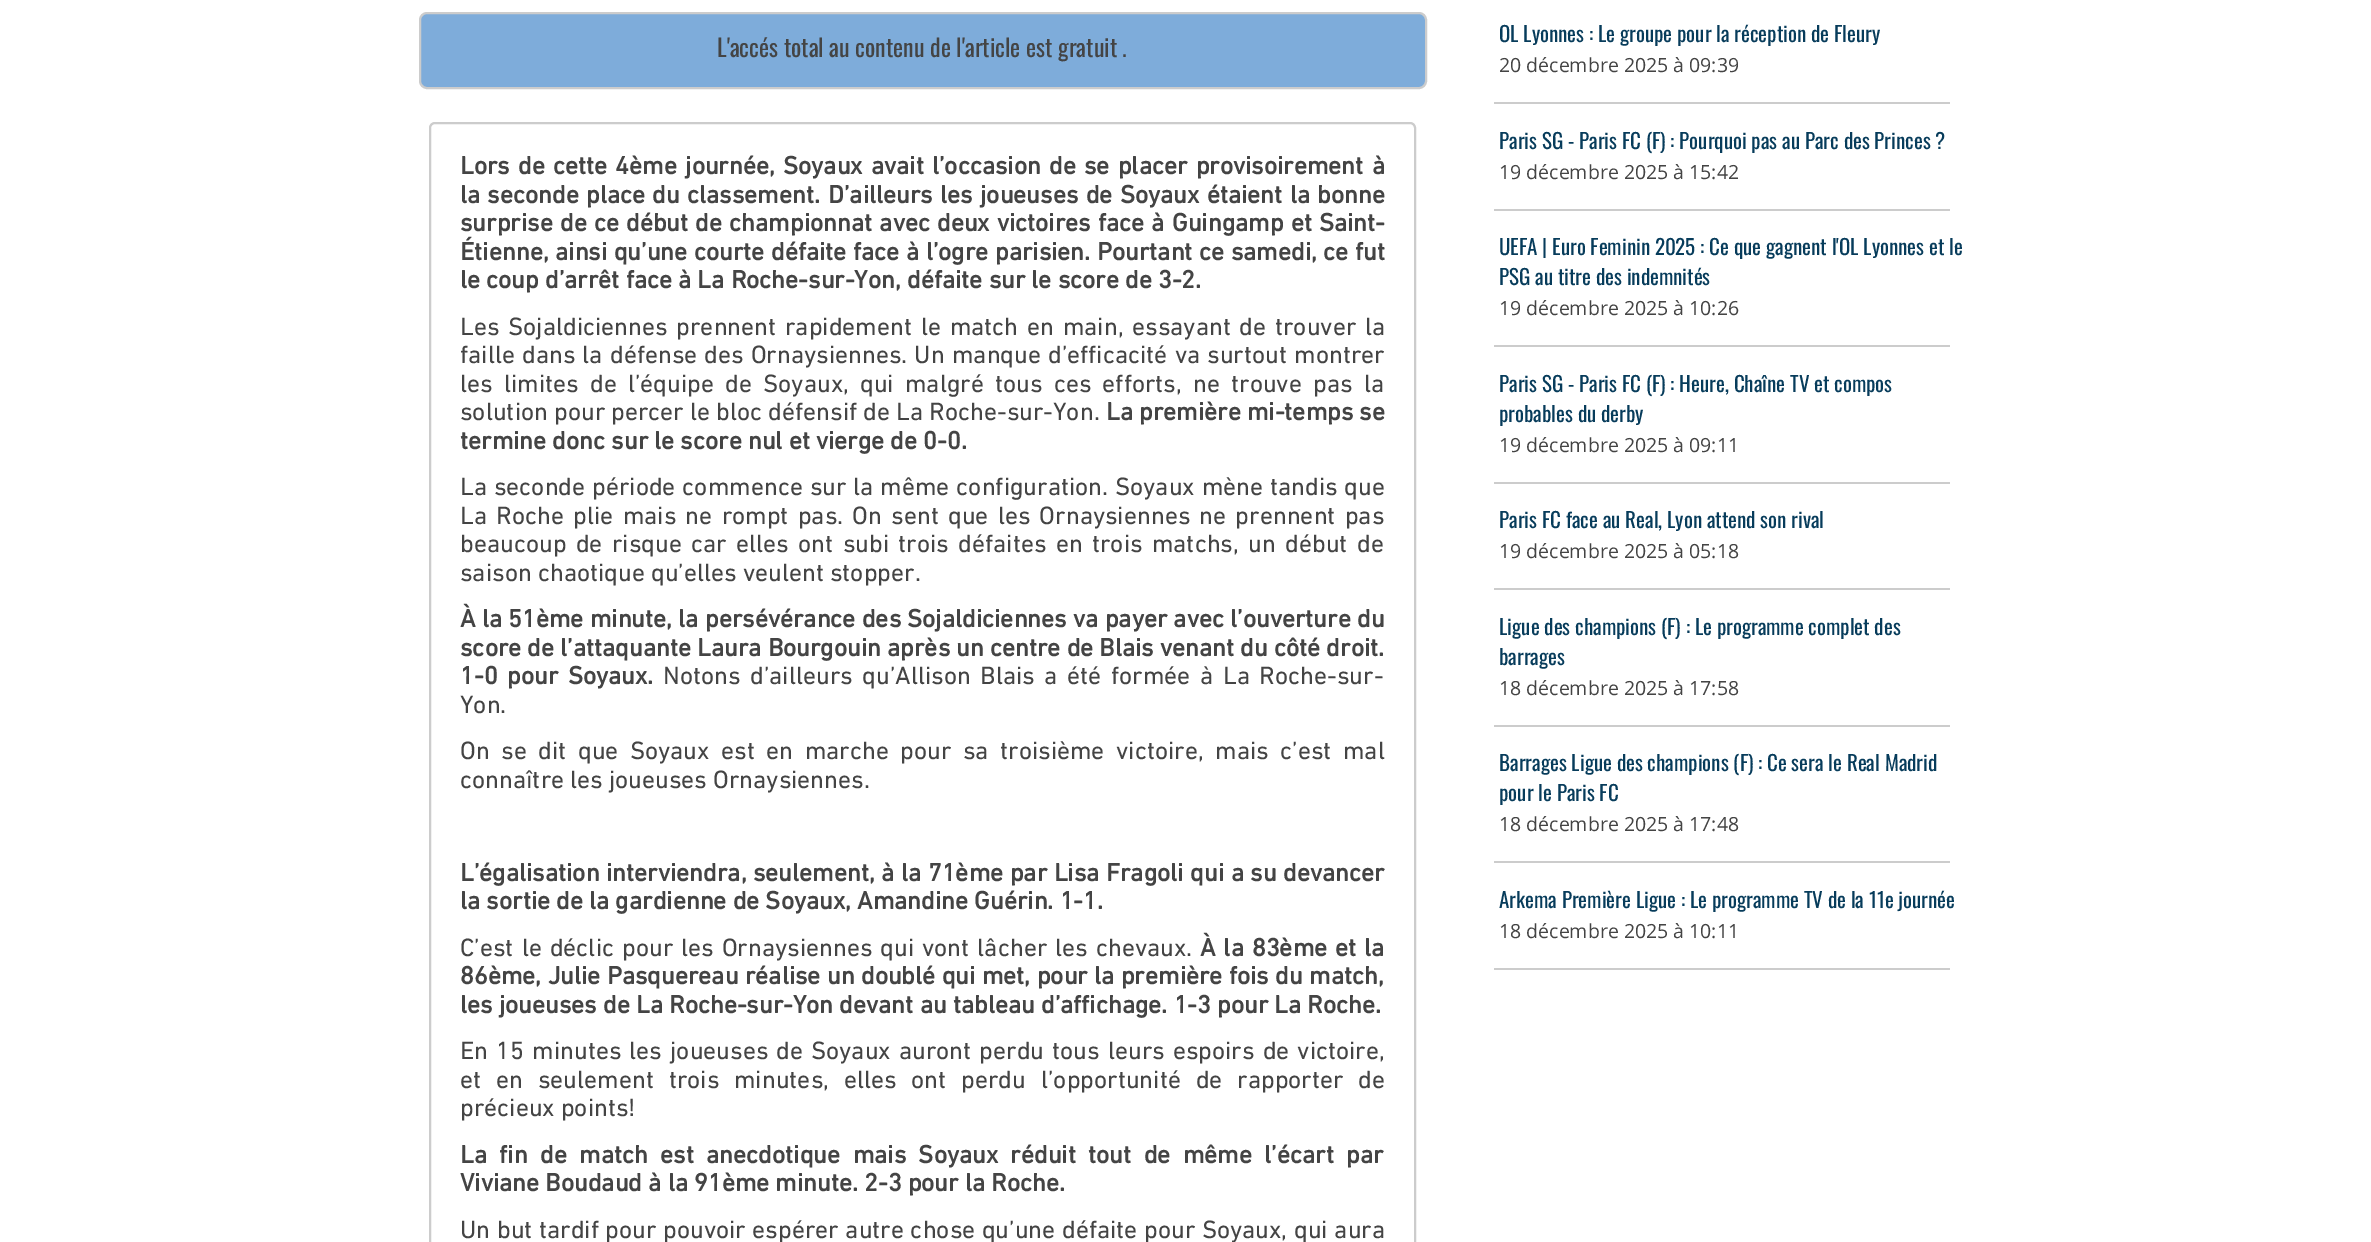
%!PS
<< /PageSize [2371 1242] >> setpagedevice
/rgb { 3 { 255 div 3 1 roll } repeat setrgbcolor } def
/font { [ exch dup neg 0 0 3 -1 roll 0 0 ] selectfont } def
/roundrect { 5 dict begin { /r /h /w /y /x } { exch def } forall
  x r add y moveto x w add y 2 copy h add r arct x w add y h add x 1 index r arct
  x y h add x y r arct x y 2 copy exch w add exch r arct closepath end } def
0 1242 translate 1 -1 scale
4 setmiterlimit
255 255 255 rgb
0 0 2371 1242 rectfill
126 172 218 rgb
420 13 1006 75 7 roundrect gsave fill grestore
204 204 204 rgb
2 setlinewidth
stroke
430 123 985 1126 5 roundrect stroke
[
  [1494 102 456 2 204 204 204]
  [1494 209 456 2 204 204 204]
  [1494 345 456 2 204 204 204]
  [1494 482 456 2 204 204 204]
  [1494 588 456 2 204 204 204]
  [1494 725 456 2 204 204 204]
  [1494 861 456 2 204 204 204]
  [1494 968 456 2 204 204 204]
] { aload pop rgb rectfill } forall
/Oswald-Regular 24 font
68 68 68 rgb
717 57 moveto (L'accés total au contenu de l'article est gratuit .) show
/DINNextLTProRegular-Bold 25.5 font
460 174 moveto 2.1 0 32 (Lors de cette 4ème journée, Soyaux avait l’occasion de se placer provisoirement à) widthshow
460 203 moveto 1 0 32 (la seconde place du classement.) widthshow
828 203 moveto 1.25 0 32 (D’ailleurs les joueuses de Soyaux étaient la bonne) widthshow
460 231 moveto 1 0 32 (surprise de ce début de championnat avec deux victoires face à Guingamp et Saint-) widthshow
460 260 moveto 0.4 0 32 (Étienne, ainsi qu’une courte défaite face à l’ogre parisien. Pourtant ce samedi, ce fut) widthshow
460 288 moveto (le coup d’arrêt face à La Roche-sur-Yon, défaite sur le score de 3-2.) show
/DINNextLTProRegular-Regular 25.5 font
460 335 moveto 2.6 0 32 (Les Sojaldiciennes prennent rapidement le match en main, essayant de trouver la) widthshow
460 363 moveto 1 0 32 (faille dans la défense des Ornaysiennes. Un manque d’efficacité va surtout montrer) widthshow
460 392 moveto 5.1 0 32 (les limites de l’équipe de Soyaux, qui malgré tous ces efforts, ne trouve pas la) widthshow
460 420 moveto (solution pour percer le bloc défensif de La Roche-sur-Yon.) show
/DINNextLTProRegular-Bold 25.5 font
1106 420 moveto (La première mi-temps se) show
460 449 moveto (termine donc sur le score nul et vierge de 0-0.) show
/DINNextLTProRegular-Regular 25.5 font
460 495 moveto 0.75 0 32 (La seconde période commence sur la même configuration. Soyaux mène tandis que) widthshow
460 524 moveto 3.1 0 32 (La Roche plie mais ne rompt pas. On sent que les Ornaysiennes ne prennent pas) widthshow
460 552 moveto 3.25 0 32 (beaucoup de risque car elles ont subi trois défaites en trois matchs, un début de) widthshow
460 581 moveto (saison chaotique qu’elles veulent stopper.) show
/DINNextLTProRegular-Bold 25.5 font
460 627 moveto 0.1 0 32 (À la 51ème minute, la persévérance des Sojaldiciennes va payer avec l’ouverture du) widthshow
460 656 moveto (score de l’attaquante Laura Bourgouin après un centre de Blais venant du côté droit.) show
460 684 moveto 3.5 0 32 (1-0 pour Soyaux.) widthshow
/DINNextLTProRegular-Regular 25.5 font
663 684 moveto 3.5 0 32 (Notons d’ailleurs qu’Allison Blais a été formée à La Roche-sur-) widthshow
460 713 moveto (Yon.) show
460 759 moveto 5.4 0 32 (On se dit que Soyaux est en marche pour sa troisième victoire, mais c’est mal) widthshow
460 788 moveto (connaître les joueuses Ornaysiennes.) show
/DINNextLTProRegular-Bold 25.5 font
460 881 moveto 0.4 0 32 (L’égalisation interviendra, seulement, à la 71ème par Lisa Fragoli qui a su devancer) widthshow
460 909 moveto (la sortie de la gardienne de Soyaux, Amandine Guérin. 1-1.) show
/DINNextLTProRegular-Regular 25.5 font
460 956 moveto 1.9 0 32 (C’est le déclic pour les Ornaysiennes qui vont lâcher les chevaux.) widthshow
/DINNextLTProRegular-Bold 25.5 font
1200 956 moveto 1.9 0 32 (À la 83ème et la) widthshow
460 984 moveto 0.25 0 32 (86ème, Julie Pasquereau réalise un doublé qui met, pour la première fois du match,) widthshow
460 1013 moveto (les joueuses de La Roche-sur-Yon devant au tableau d’affichage. 1-3 pour La Roche.) show
/DINNextLTProRegular-Regular 25.5 font
460 1059 moveto 2 0 32 (En 15 minutes les joueuses de Soyaux auront perdu tous leurs espoirs de victoire,) widthshow
460 1088 moveto 8.75 0 32 (et en seulement trois minutes, elles ont perdu l’opportunité de rapporter de) widthshow
460 1116 moveto (précieux points!) show
/DINNextLTProRegular-Bold 25.5 font
460 1163 moveto 6.25 0 32 (La fin de match est anecdotique mais Soyaux réduit tout de même l’écart par) widthshow
460 1191 moveto (Viviane Boudaud à la 91ème minute. 2-3 pour la Roche.) show
/DINNextLTProRegular-Regular 25.5 font
460 1238 moveto 0.5 0 32 (Un but tardif pour pouvoir espérer autre chose qu’une défaite pour Soyaux, qui aura) widthshow
/Oswald-Regular 21 font
7 60 91 rgb
1499 42 moveto (OL Lyonnes : Le groupe pour la réception de Fleury) show
/OpenSans-Regular 19.5 font
68 68 68 rgb
1499 72 moveto (20 décembre 2025 à 09:39) show
/Oswald-Regular 21 font
7 60 91 rgb
1499 149 moveto (Paris SG - Paris FC \(F\) : Pourquoi pas au Parc des Princes ?) show
/OpenSans-Regular 19.5 font
68 68 68 rgb
1499 179 moveto (19 décembre 2025 à 15:42) show
/Oswald-Regular 21 font
7 60 91 rgb
1499 255 moveto (UEFA | Euro Feminin 2025 : Ce que gagnent l'OL Lyonnes et le) show
1499 285 moveto (PSG au titre des indemnités) show
/OpenSans-Regular 19.5 font
68 68 68 rgb
1499 315 moveto (19 décembre 2025 à 10:26) show
/Oswald-Regular 21 font
7 60 91 rgb
1499 392 moveto (Paris SG - Paris FC \(F\) : Heure, Chaîne TV et compos) show
1499 422 moveto (probables du derby) show
/OpenSans-Regular 19.5 font
68 68 68 rgb
1499 452 moveto (19 décembre 2025 à 09:11) show
/Oswald-Regular 21 font
7 60 91 rgb
1499 528 moveto (Paris FC face au Real, Lyon attend son rival) show
/OpenSans-Regular 19.5 font
68 68 68 rgb
1499 558 moveto (19 décembre 2025 à 05:18) show
/Oswald-Regular 21 font
7 60 91 rgb
1499 635 moveto (Ligue des champions \(F\) : Le programme complet des) show
1499 665 moveto (barrages) show
/OpenSans-Regular 19.5 font
68 68 68 rgb
1499 695 moveto (18 décembre 2025 à 17:58) show
/Oswald-Regular 21 font
7 60 91 rgb
1499 771 moveto (Barrages Ligue des champions \(F\) : Ce sera le Real Madrid) show
1499 801 moveto (pour le Paris FC) show
/OpenSans-Regular 19.5 font
68 68 68 rgb
1499 831 moveto (18 décembre 2025 à 17:48) show
/Oswald-Regular 21 font
7 60 91 rgb
1499 908 moveto (Arkema Première Ligue : Le programme TV de la 11e journée) show
/OpenSans-Regular 19.5 font
68 68 68 rgb
1499 938 moveto (18 décembre 2025 à 10:11) show
showpage
